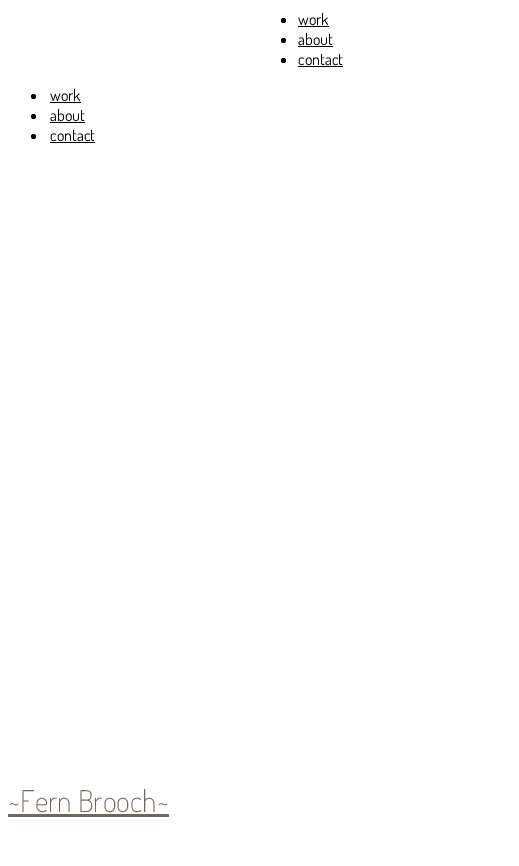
%!PS
<< /PageSize [519 866] >> setpagedevice
/rgb { 3 { 255 div 3 1 roll } repeat setrgbcolor } def
/font { [ exch dup neg 0 0 3 -1 roll 0 0 ] selectfont } def
/circle { newpath 0 360 arc closepath } def
0 866 translate 1 -1 scale
4 setmiterlimit
255 255 255 rgb
0 0 519 866 rectfill
0 0 0 rgb
283.5 20.5 2.5 circle fill
298 26 31 1 rectfill
283.5 40.5 2.5 circle fill
298 46 35 1 rectfill
283.5 60.5 2.5 circle fill
298 66 45 1 rectfill
33.5 96.5 2.5 circle fill
50 102 31 1 rectfill
33.5 116.5 2.5 circle fill
50 122 35 1 rectfill
33.5 136.5 2.5 circle fill
50 142 45 1 rectfill
111 102 92 rgb
8 814 161 3 rectfill
/Dosis-Regular 16 font
0 0 0 rgb
[
  [(work) 298 25]
  [(about) 298 45]
  [(contact) 298 65]
  [(work) 50 101]
  [(about) 50 121]
  [(contact) 50 141]
] { aload pop moveto show } forall
/Dosis-ExtraLight 30 font
111 102 92 rgb
8 812 moveto (~Fern Brooch~) show
showpage
